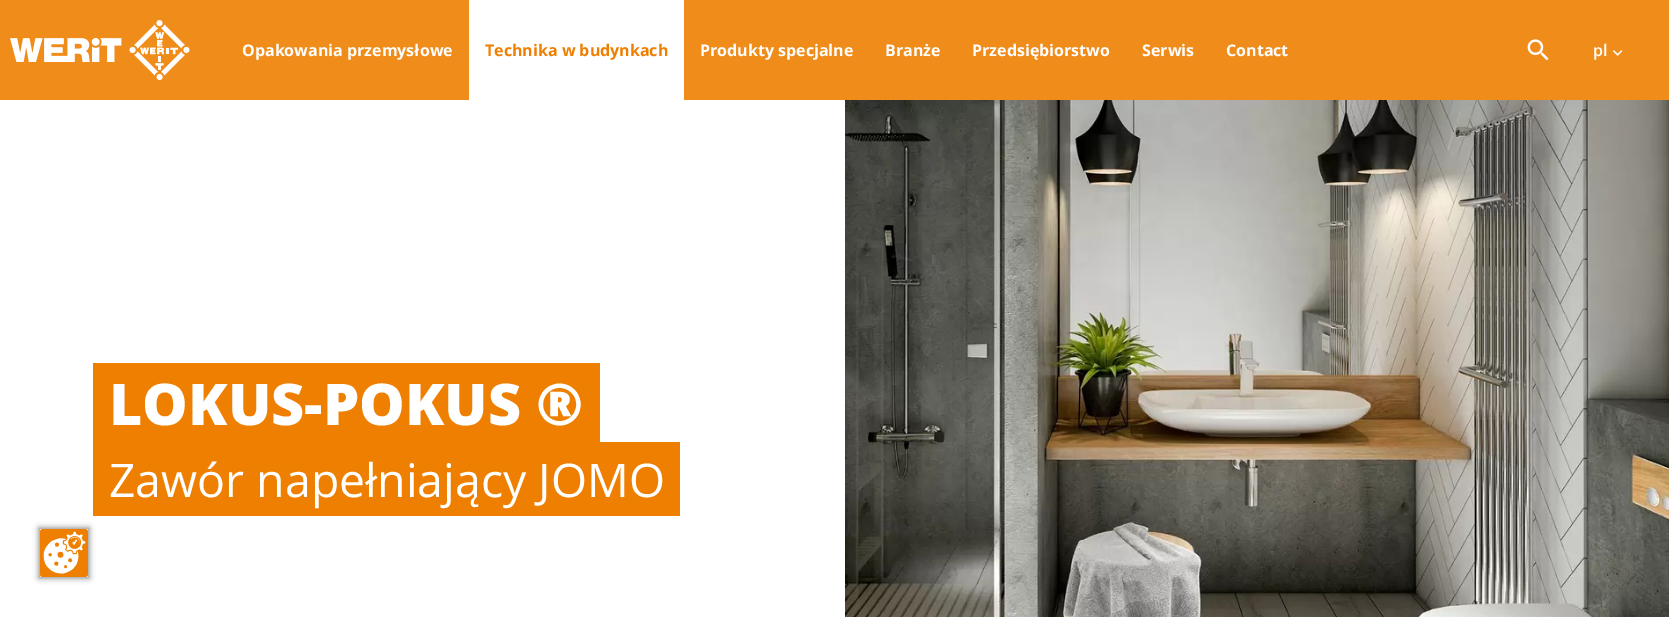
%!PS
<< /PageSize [1669 617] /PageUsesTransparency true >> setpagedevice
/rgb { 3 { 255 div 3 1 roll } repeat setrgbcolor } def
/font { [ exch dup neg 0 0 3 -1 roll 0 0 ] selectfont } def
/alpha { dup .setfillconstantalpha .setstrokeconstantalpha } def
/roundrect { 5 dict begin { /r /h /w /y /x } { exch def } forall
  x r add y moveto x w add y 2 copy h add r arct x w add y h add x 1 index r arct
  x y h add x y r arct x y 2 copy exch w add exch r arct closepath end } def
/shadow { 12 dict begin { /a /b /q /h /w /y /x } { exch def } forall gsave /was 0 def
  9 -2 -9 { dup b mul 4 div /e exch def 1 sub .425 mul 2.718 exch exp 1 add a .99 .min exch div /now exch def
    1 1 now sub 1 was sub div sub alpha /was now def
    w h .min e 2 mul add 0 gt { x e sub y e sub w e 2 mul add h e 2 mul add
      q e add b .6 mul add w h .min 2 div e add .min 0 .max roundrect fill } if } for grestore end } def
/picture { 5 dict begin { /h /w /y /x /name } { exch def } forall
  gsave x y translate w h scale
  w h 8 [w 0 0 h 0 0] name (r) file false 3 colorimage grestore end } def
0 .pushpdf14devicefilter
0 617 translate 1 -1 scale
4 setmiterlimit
255 255 255 rgb
0 0 1669 617 rectfill
240 140 26 rgb
0 0 1669 100 rectfill
(img/1.rgb) 10 20 180 60 picture
255 255 255 rgb
469 0 215 100 rectfill
(img/2.rgb) 1527 39 22 22 picture
(img/3.rgb) 1612 50 11 6 picture
[
  [109 363 491 79 238 127 0]
  [93 363 16 153 238 127 0]
  [109 442 571 74 238 127 0]
] { aload pop rgb rectfill } forall
(img/4.rgb) 845 100 824 517 picture
0 0 0 rgb
39 528 50 50 0 3 0.5 shadow
(img/5.rgb) 40 529 48 48 picture
/OpenSans-Bold 16 font
255 255 255 rgb
242 56 moveto (Opakowania przemysłowe) show
238 127 0 rgb
485 56 moveto (Technika w budynkach) show
255 255 255 rgb
[
  [(Produkty specjalne) 700 56]
  [(Branże) 885 56]
  [(Przedsiębiorstwo) 972 56]
  [(Serwis) 1142 56]
  [(Contact) 1226 56]
] { aload pop moveto show } forall
/OpenSans-SemiBold 16 font
1593 56 moveto (pl) show
/OpenSans-ExtraBold 57.5 font
109 425 moveto (LOKUS-POKUS ®) show
/OpenSans-Regular 46.4 font
109 497 moveto (Zawór napełniający JOMO) show
.poppdf14devicefilter showpage
